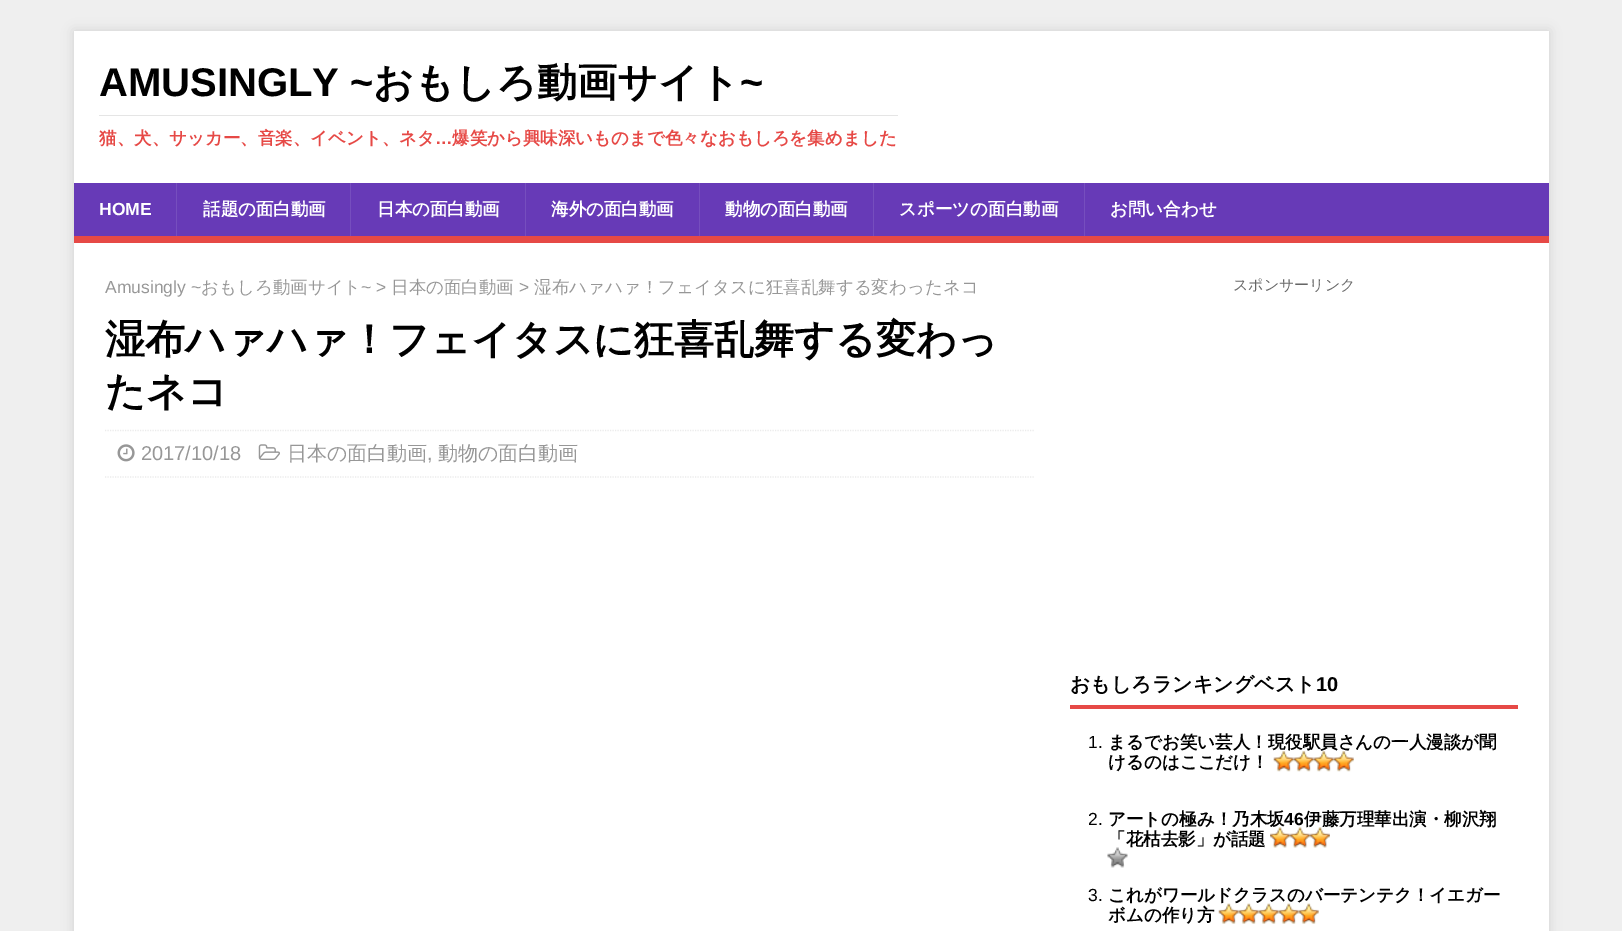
%!PS
<< /PageSize [1622 931] /PageUsesTransparency true >> setpagedevice
/rgb { 3 { 255 div 3 1 roll } repeat setrgbcolor } def
/font { [ exch dup neg 0 0 3 -1 roll 0 0 ] selectfont } def
/alpha { dup .setfillconstantalpha .setstrokeconstantalpha } def
/roundrect { 5 dict begin { /r /h /w /y /x } { exch def } forall
  x r add y moveto x w add y 2 copy h add r arct x w add y h add x 1 index r arct
  x y h add x y r arct x y 2 copy exch w add exch r arct closepath end } def
/shadow { 12 dict begin { /a /b /q /h /w /y /x } { exch def } forall gsave /was 0 def
  9 -2 -9 { dup b mul 4 div /e exch def 1 sub .425 mul 2.718 exch exp 1 add a .99 .min exch div /now exch def
    1 1 now sub 1 was sub div sub alpha /was now def
    w h .min e 2 mul add 0 gt { x e sub y e sub w e 2 mul add h e 2 mul add
      q e add b .6 mul add w h .min 2 div e add .min 0 .max roundrect fill } if } for grestore end } def
/picture { 5 dict begin { /h /w /y /x /name } { exch def } forall
  gsave x y translate w h scale
  w h 8 [w 0 0 h 0 0] name (r) file false 3 colorimage grestore end } def
0 .pushpdf14devicefilter
0 931 translate 1 -1 scale
4 setmiterlimit
239 239 239 rgb
0 0 1622 931 rectfill
50 50 50 rgb
74 31 1475 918 0 6 0.17 shadow
[
  [74 31 1475 152 255 255 255]
  [99 115 799 1 229 229 229]
  [74 183 1475 53 103 58 183]
  [74 236 1475 7 230 73 70]
  [176 183 1 53 118 78 190]
  [350 183 1 53 118 78 190]
  [525 183 1 53 118 78 190]
  [699 183 1 53 118 78 190]
  [873 183 1 53 118 78 190]
  [1084 183 1 53 118 78 190]
  [74 243 1475 688 255 255 255]
] { aload pop rgb rectfill } forall
235 235 235 rgb
1.2 setlinewidth
[1.25 1.25] 0 setdash
105 430.5 moveto 1035 430.5 lineto stroke
105 477 moveto 1035 477 lineto stroke
(img/1.rgb) 117 444 18 18 picture
(img/2.rgb) 258 444 22 16 picture
230 73 70 rgb
1070 705 448 4 rectfill
(img/3.rgb) 1273 751 21 21 picture
(img/4.rgb) 1293 751 21 21 picture
(img/4.rgb) 1313 751 21 21 picture
(img/4.rgb) 1333 751 21 21 picture
/LiberationSans-Bold 40 font
0 0 0 rgb
99 96 moveto (AMUSINGLY ~) show
/WenQuanYiZenHei-Bold 40 font
373 96 moveto (おもしろ動画サイト) show
/LiberationSans-Bold 40 font
740 96 moveto (~) show
/WenQuanYiZenHei-Bold 17.5 font
230 73 70 rgb
99 144 moveto (猫、犬、サッカー、音楽、イベント、ネタ) show
/LiberationSans-Bold 17.5 font
435 144 moveto (…) show
/WenQuanYiZenHei-Bold 17.5 font
452 144 moveto (爆笑から興味深いものまで色々なおもしろを集めました) show
/LiberationSans-Bold 17.5 font
255 255 255 rgb
99 215 moveto (HOME) show
/WenQuanYiZenHei-Bold 17.5 font
[
  [(話題の面白動画) 203 215]
  [(日本の面白動画) 377 215]
  [(海外の面白動画) 551 215]
  [(動物の面白動画) 725 215]
  [(スポーツの面白動画) 899 215]
  [(お問い合わせ) 1110 215]
] { aload pop moveto show } forall
/LiberationSans-Regular 17.5 font
151 151 151 rgb
105 293 moveto (Amusingly ~) show
/WenQuanYiZenHei-Medium 17.5 font
201 293 moveto (おもしろ動画サイト) show
/LiberationSans-Regular 17.5 font
361 293 moveto (~ >) show
/WenQuanYiZenHei-Medium 17.5 font
391 293 moveto (日本の面白動画) show
/LiberationSans-Regular 17.5 font
519 293 moveto (>) show
/WenQuanYiZenHei-Medium 17.5 font
534 293 moveto (湿布ハァハァ！フェイタスに狂喜乱舞する変わったネコ) show
/WenQuanYiZenHei-Bold 40 font
0 0 0 rgb
105 353 moveto (湿布ハァハァ！フェイタスに狂喜乱舞する変わっ) show
105 405 moveto (たネコ) show
/LiberationSans-Regular 20 font
151 151 151 rgb
141 460 moveto (2017/10/18) show
/WenQuanYiZenHei-Medium 20 font
287 460 moveto (日本の面白動画) show
/LiberationSans-Regular 20 font
427 460 moveto (,) show
/WenQuanYiZenHei-Medium 20 font
438 460 moveto (動物の面白動画) show
/WenQuanYiZenHei-Medium 15 font
102 102 102 rgb
1233 290 moveto (スポンサーリンク) show
/WenQuanYiZenHei-Bold 20 font
0 0 0 rgb
1070 691 moveto (おもしろランキングベスト) show
/LiberationSans-Bold 20 font
1316 691 moveto (10) show
/LiberationSans-Regular 17.5 font
1088 748 moveto (1.) show
/WenQuanYiZenHei-Bold 17.5 font
1108 748 moveto (まるでお笑い芸人！現役駅員さんの一人漫談が聞) show
1108 768 moveto (けるのはここだけ！) show
/LiberationSans-Regular 17.5 font
1088 825 moveto (2.) show
/WenQuanYiZenHei-Bold 17.5 font
1108 825 moveto (アートの極み！乃木坂) show
/LiberationSans-Bold 17.5 font
1284 825 moveto (46) show
/WenQuanYiZenHei-Bold 17.5 font
1304 825 moveto (伊藤万理華出演・柳沢翔) show
1108 845 moveto (「花枯去影」が話題) show
(img/5.rgb) 1270 827 20 21 picture
(img/6.rgb) 1290 827 20 21 picture
(img/7.rgb) 1310 827 20 21 picture
(img/8.rgb) 1107 847 21 21 picture
/LiberationSans-Regular 17.5 font
1088 901 moveto (3.) show
/WenQuanYiZenHei-Bold 17.5 font
1108 901 moveto (これがワールドクラスのバーテンテク！イエガー) show
1108 921 moveto (ボムの作り方) show
(img/9.rgb) 1218 903 21 21 picture
(img/10.rgb) 1238 903 21 21 picture
(img/11.rgb) 1258 903 21 21 picture
(img/12.rgb) 1278 903 21 21 picture
(img/10.rgb) 1298 903 21 21 picture
.poppdf14devicefilter showpage
